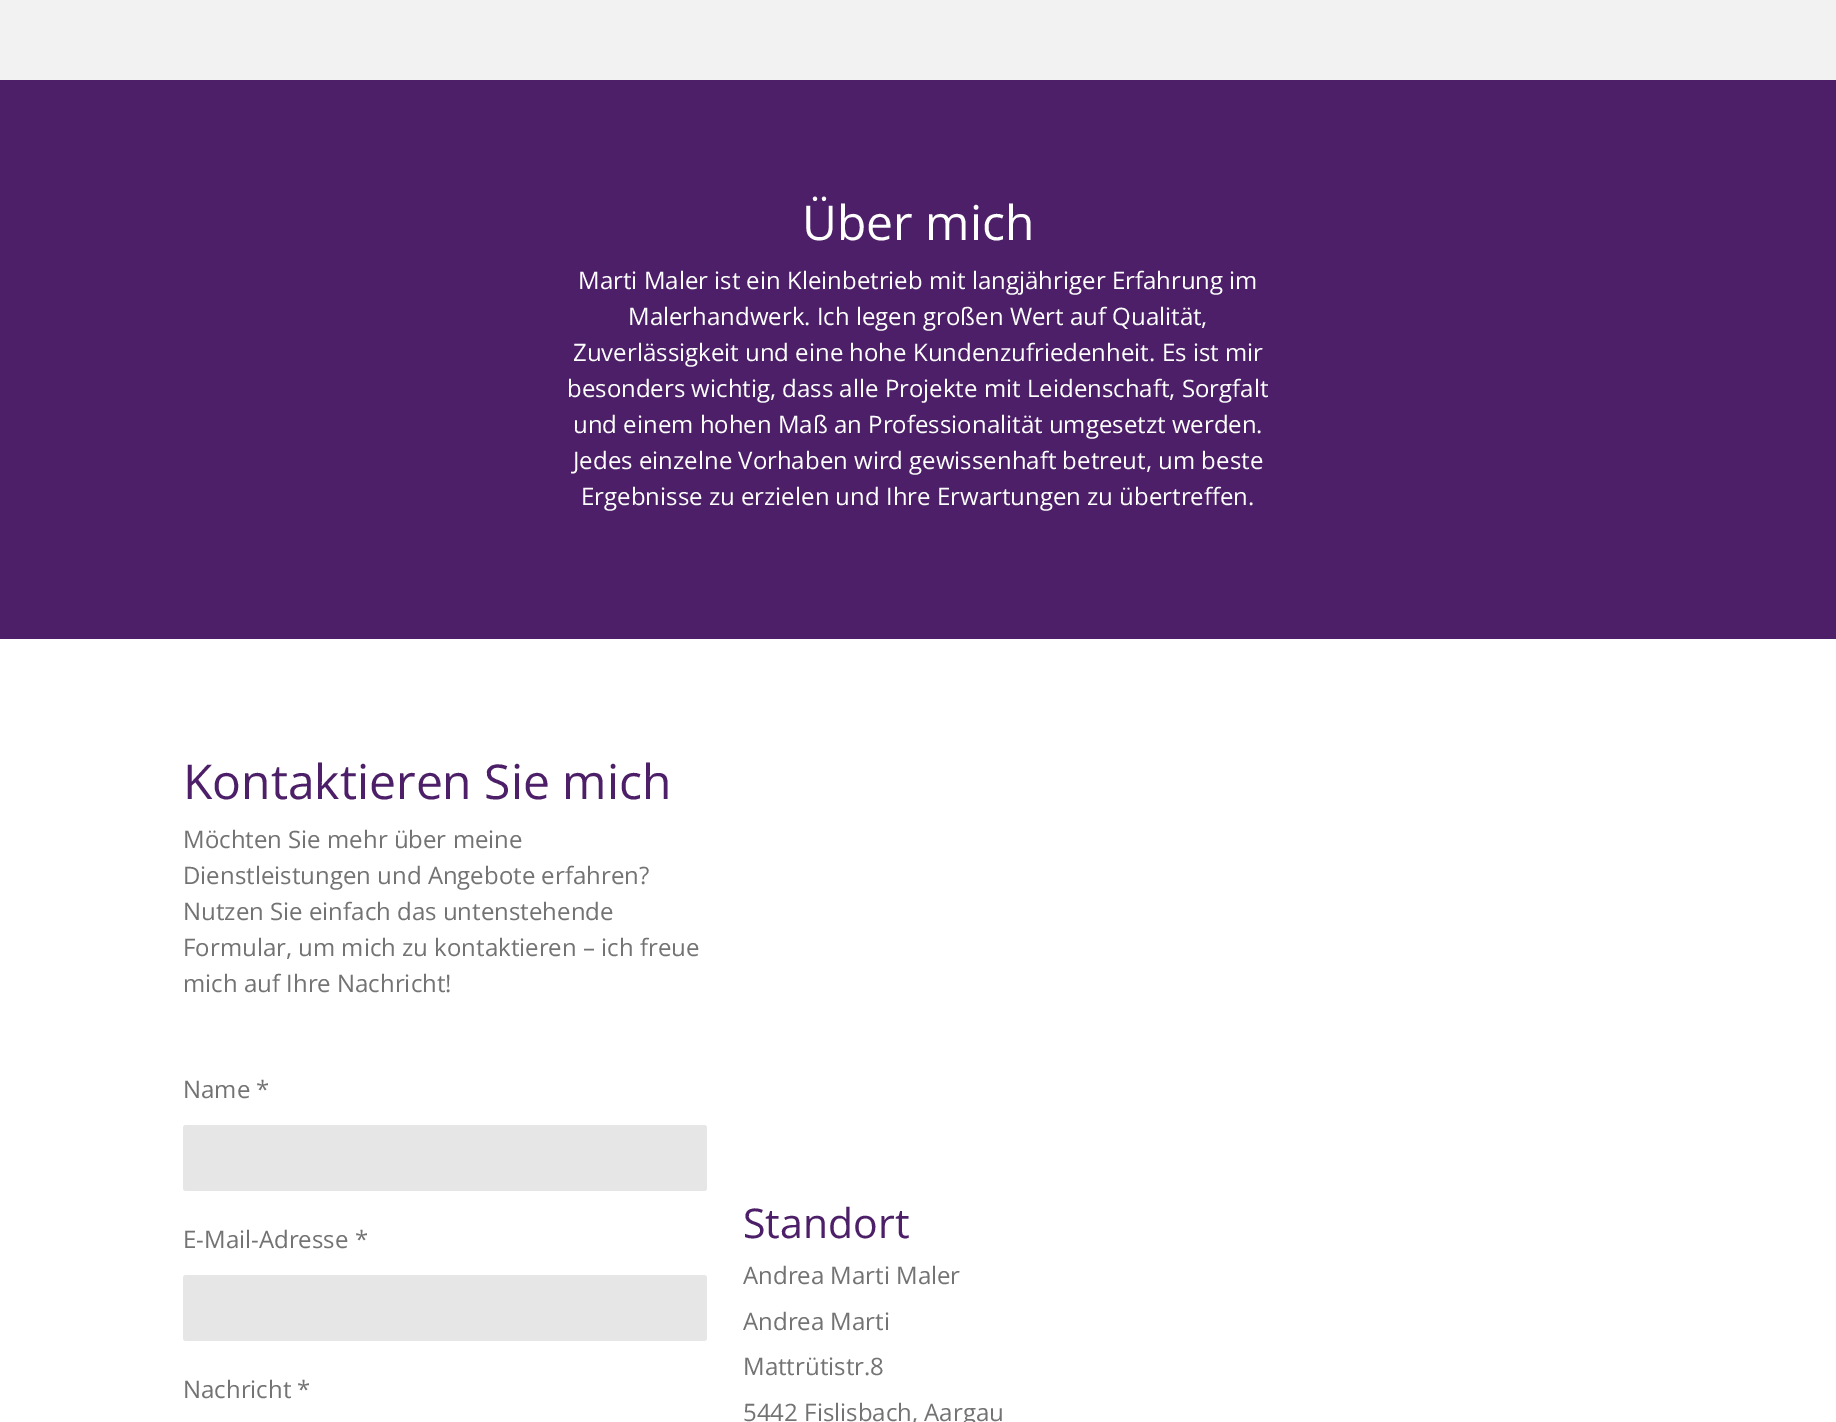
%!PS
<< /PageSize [1836 1422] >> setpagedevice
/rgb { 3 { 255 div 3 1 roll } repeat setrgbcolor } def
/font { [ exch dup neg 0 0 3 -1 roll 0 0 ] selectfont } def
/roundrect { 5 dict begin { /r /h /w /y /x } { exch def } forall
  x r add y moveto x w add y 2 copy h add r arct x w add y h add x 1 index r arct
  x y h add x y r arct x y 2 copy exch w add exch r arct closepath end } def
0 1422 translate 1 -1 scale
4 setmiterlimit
255 255 255 rgb
0 0 1836 1422 rectfill
242 242 242 rgb
0 0 1836 80 rectfill
76 31 104 rgb
0 80 1836 559 rectfill
230 230 230 rgb
183 1125 524 66 3 roundrect fill
183 1275 524 66 3 roundrect fill
/OpenSans-Regular 48 font
255 255 255 rgb
802 240 moveto (Über mich) show
/OpenSans-Regular 24 font
[
  [(Marti Maler ist ein Kleinbetrieb mit langjähriger Erfahrung im) 578 289]
  [(Malerhandwerk. Ich legen großen Wert auf Qualität,) 628 325]
  [(Zuverlässigkeit und eine hohe Kundenzufriedenheit. Es ist mir) 573 361]
  [(besonders wichtig, dass alle Projekte mit Leidenschaft, Sorgfalt) 567 397]
  [(und einem hohen Maß an Professionalität umgesetzt werden.) 573 433]
  [(Jedes einzelne Vorhaben wird gewissenhaft betreut, um beste) 573 469]
  [(Ergebnisse zu erzielen und Ihre Erwartungen zu übertreffen.) 581 505]
] { aload pop moveto show } forall
/OpenSans-Regular 48 font
76 31 104 rgb
183 799 moveto (Kontaktieren Sie mich) show
/OpenSans-Regular 24 font
115 115 115 rgb
[
  [(Möchten Sie mehr über meine) 183 848]
  [(Dienstleistungen und Angebote erfahren?) 183 884]
  [(Nutzen Sie einfach das untenstehende) 183 920]
  [(Formular, um mich zu kontaktieren – ich freue) 183 956]
  [(mich auf Ihre Nachricht!) 183 992]
  [(Name *) 183 1098]
  [(E-Mail-Adresse *) 183 1248]
  [(Nachricht *) 183 1398]
] { aload pop moveto show } forall
/OpenSans-Regular 41 font
76 31 104 rgb
743 1238 moveto (Standort) show
/OpenSans-Regular 24 font
115 115 115 rgb
[
  [(Andrea Marti Maler) 743 1284]
  [(Andrea Marti) 743 1330]
  [(Mattrütistr.8) 743 1375]
  [(5442 Fislisbach, Aargau) 743 1421]
] { aload pop moveto show } forall
showpage
